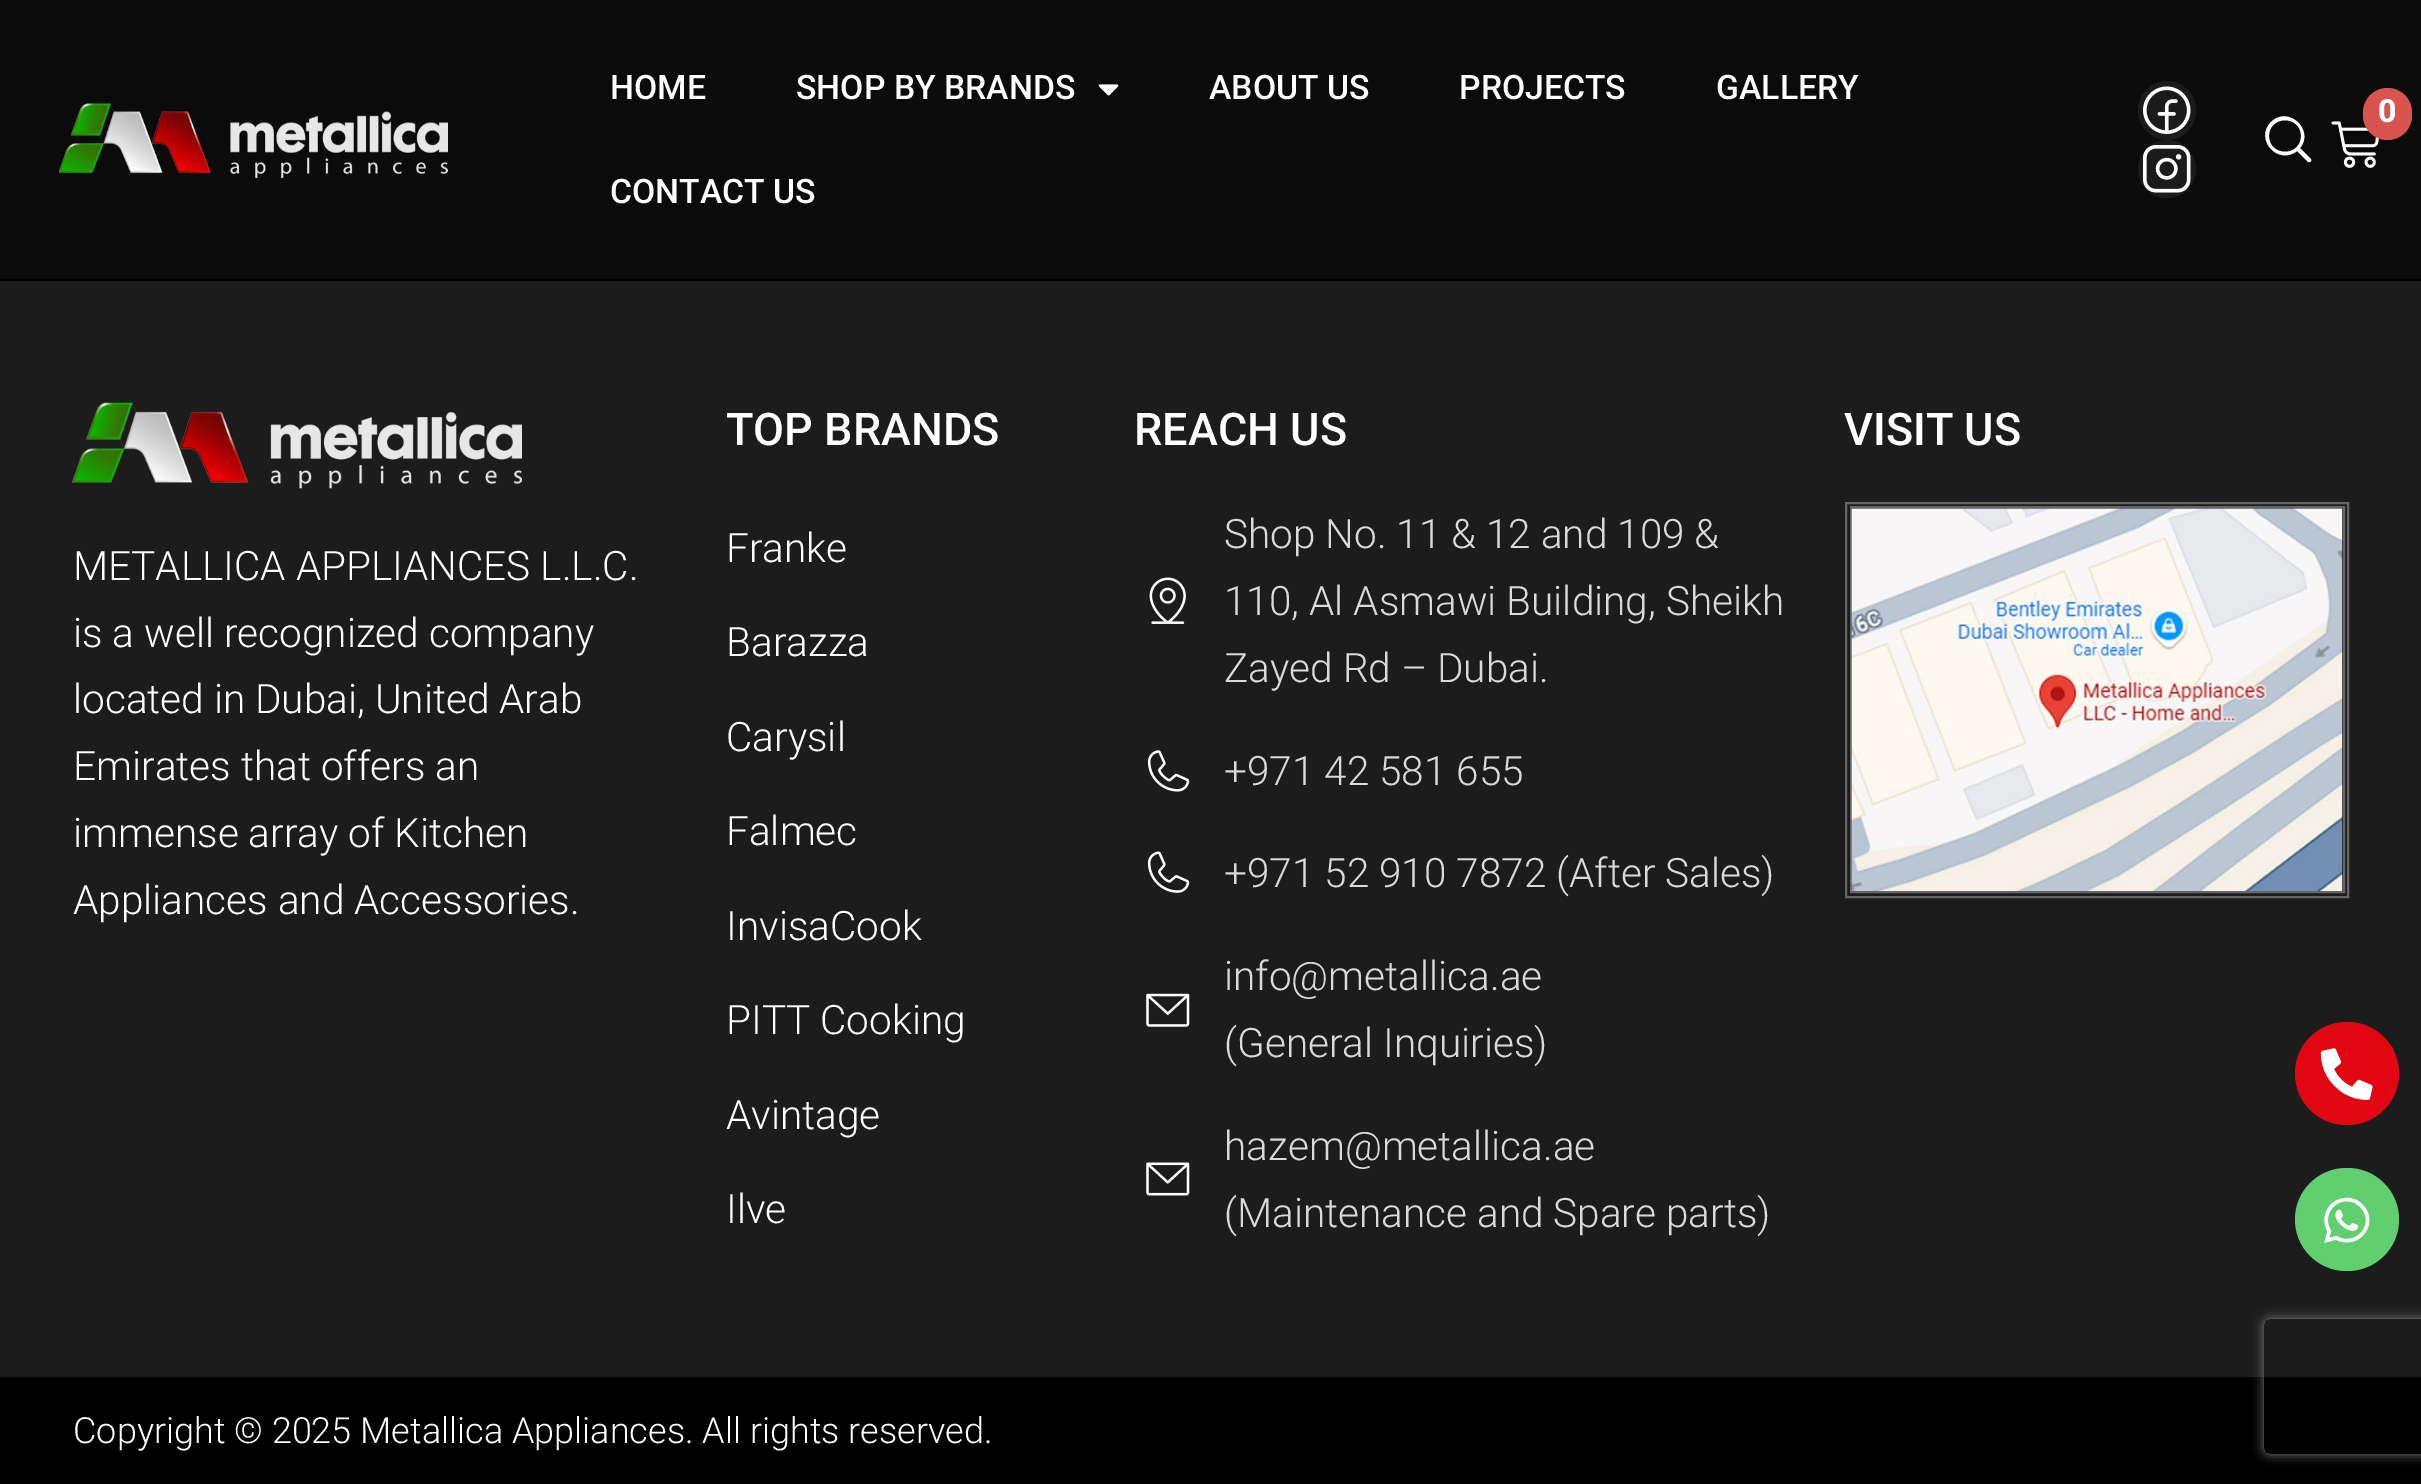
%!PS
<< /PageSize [2421 1484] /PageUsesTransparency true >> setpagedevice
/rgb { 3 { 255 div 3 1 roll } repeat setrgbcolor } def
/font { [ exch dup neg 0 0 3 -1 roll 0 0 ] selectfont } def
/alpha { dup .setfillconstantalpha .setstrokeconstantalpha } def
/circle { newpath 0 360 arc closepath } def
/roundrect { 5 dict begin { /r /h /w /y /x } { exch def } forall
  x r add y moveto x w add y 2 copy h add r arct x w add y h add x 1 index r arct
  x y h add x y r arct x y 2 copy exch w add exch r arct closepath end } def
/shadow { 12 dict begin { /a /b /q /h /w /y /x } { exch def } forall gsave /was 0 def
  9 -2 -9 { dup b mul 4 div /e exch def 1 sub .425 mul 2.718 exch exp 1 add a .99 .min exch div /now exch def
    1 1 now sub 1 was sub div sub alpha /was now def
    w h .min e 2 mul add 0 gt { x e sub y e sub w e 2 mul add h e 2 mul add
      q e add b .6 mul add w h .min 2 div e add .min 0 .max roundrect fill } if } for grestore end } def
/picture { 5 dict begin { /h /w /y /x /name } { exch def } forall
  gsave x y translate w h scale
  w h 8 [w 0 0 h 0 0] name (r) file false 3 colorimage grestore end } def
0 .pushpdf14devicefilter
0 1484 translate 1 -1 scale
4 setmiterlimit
0 0 0 rgb
0 0 2421 1484 rectfill
11 11 11 rgb
0 0 2421 279 rectfill
(img/1.rgb) 59 103 389 75 picture
(img/2.rgb) 1098 84 21 12 picture
27 27 27 rgb
2138 81 58 59 29 roundrect fill
(img/3.rgb) 2143 86 48 48 picture
2167 169 29 circle fill
(img/4.rgb) 2143 145 48 48 picture
(img/5.rgb) 2331 121 48 47 picture
217 83 79 rgb
2363 88 49 52 24.5 roundrect fill
255 255 255 rgb
2311 159 moveto 2300 148 lineto 2315 130 2288 105 2271 122 curveto 2254 139 2278 166 2297 151 curveto 2308 162 lineto 2310 163 2312 161 2311 159 curveto closepath 2269 136 moveto 2269 115 2301 115 2301 136 curveto 2301 157 2269 157 2269 136 curveto closepath fill
28 28 28 rgb
0 281 2421 1096 rectfill
(img/6.rgb) 1149 577 37 47 picture
(img/7.rgb) 1147 750 43 42 picture
(img/8.rgb) 1147 851 43 42 picture
(img/9.rgb) 1146 993 44 34 picture
(img/10.rgb) 1146 1162 44 34 picture
102 102 102 rgb
2 setlinewidth
1846 503 502 394 rectstroke
1851 507 493 385 rectstroke
(img/11.rgb) 1851 508 492 383 picture
(img/12.rgb) 72 402 450 87 picture
226 6 19 rgb
2295 1022 104 103 51.5 roundrect fill
(img/13.rgb) 2320 1048 53 52 picture
97 206 112 rgb
2295 1168 104 103 51.5 roundrect fill
(img/14.rgb) 2324 1197 46 46 picture
gsave
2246 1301 moveto 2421 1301 lineto 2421 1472 lineto 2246 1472 lineto closepath 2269 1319 moveto 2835 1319 lineto 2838 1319 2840 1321 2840 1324 curveto 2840 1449 lineto 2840 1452 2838 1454 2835 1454 curveto 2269 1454 lineto 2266 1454 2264 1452 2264 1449 curveto 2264 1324 lineto 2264 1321 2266 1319 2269 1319 curveto closepath eoclip newpath
128 128 128 rgb
2264 1319 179 135 5 5.5 1 shadow
grestore
/Roboto-Medium 33.75 font
255 255 255 rgb
[
  [(HOME) 610 99]
  [(SHOP BY BRANDS) 796 99]
  [(ABOUT US) 1209 99]
  [(PROJECTS) 1459 99]
  [(GALLERY) 1716 99]
  [(CONTACT US) 610 203]
] { aload pop moveto show } forall
/Roboto-ExtraBold 32 font
2378 122 moveto (0) show
/Roboto-Medium 45 font
726 445 moveto (TOP BRANDS) show
/Roboto-Light 40.5 font
[
  [(Franke) 726 562]
  [(Barazza) 726 656]
  [(Carysil) 726 751]
  [(Falmec) 726 845]
  [(InvisaCook) 726 940]
  [(PITT Cooking) 726 1034]
  [(Avintage) 726 1129]
  [(Ilve) 726 1223]
] { aload pop moveto show } forall
/Roboto-Medium 45 font
1134 445 moveto (REACH US) show
/Roboto-Light 40.5 font
218 218 218 rgb
[
  [(Shop No. 11 & 12 and 109 &) 1224 548]
  [(110, Al Asmawi Building, Sheikh) 1224 615]
  [(Zayed Rd – Dubai.) 1224 682]
  [(+971 42 581 655) 1224 785]
  [(+971 52 910 7872 \(After Sales\)) 1224 887]
  [(info@metallica.ae) 1224 990]
  [(\(General Inquiries\)) 1224 1057]
  [(hazem@metallica.ae) 1224 1160]
  [(\(Maintenance and Spare parts\)) 1224 1227]
] { aload pop moveto show } forall
/Roboto-Medium 45 font
255 255 255 rgb
1844 445 moveto (VISIT US) show
/Roboto-Light 40.5 font
[
  [(METALLICA APPLIANCES L.L.C.) 73 580]
  [(is a well recognized company) 73 647]
  [(located in Dubai, United Arab) 73 713]
  [(Emirates that offers an) 73 780]
  [(immense array of Kitchen) 73 847]
  [(Appliances and Accessories.) 73 914]
] { aload pop moveto show } forall
/Roboto-Light 36 font
73 1443 moveto (Copyright © 2025 Metallica Appliances. All rights reserved.) show
.poppdf14devicefilter showpage
